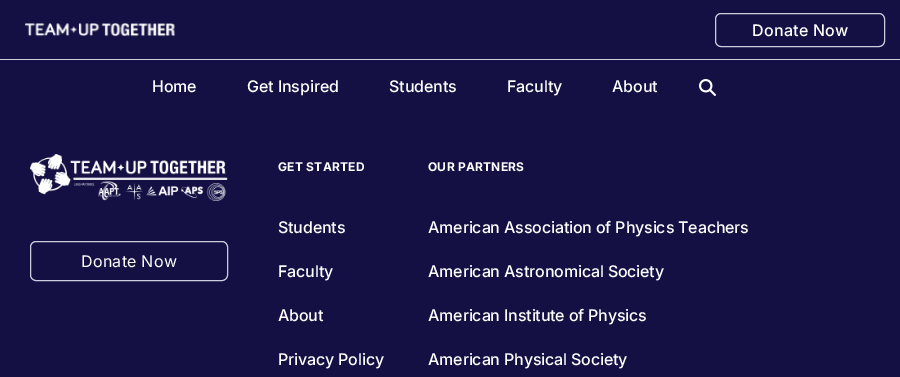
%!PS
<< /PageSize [900 377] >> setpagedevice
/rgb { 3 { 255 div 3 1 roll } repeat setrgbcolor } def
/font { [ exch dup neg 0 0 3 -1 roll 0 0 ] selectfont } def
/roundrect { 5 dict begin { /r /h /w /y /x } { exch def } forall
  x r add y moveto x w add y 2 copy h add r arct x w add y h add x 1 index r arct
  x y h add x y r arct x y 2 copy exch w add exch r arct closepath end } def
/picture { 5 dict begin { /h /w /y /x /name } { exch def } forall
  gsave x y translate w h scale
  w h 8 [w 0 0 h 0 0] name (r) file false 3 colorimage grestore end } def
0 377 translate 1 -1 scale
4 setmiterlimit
20 16 68 rgb
0 0 900 377 rectfill
204 204 223 rgb
0 59 900 1 rectfill
(img/1.rgb) 25 23 150 14 picture
715.5 13.5 169 33 5.5 roundrect stroke
(img/2.rgb) 699 79 17 17 picture
(img/3.rgb) 30 154 198 47 picture
30.5 241.5 197 39 5.5 roundrect stroke
/Inter-Medium 16 font
255 255 255 rgb
752 36 moveto 0.25 0 (Donate Now) ashow
152 92 moveto -0.1 0 (Home) ashow
247 92 moveto -0.1 0 (Get Inspired) ashow
389 92 moveto -0.1 0 (Students) ashow
507 92 moveto -0.1 0 (Faculty) ashow
612 92 moveto -0.1 0 (About) ashow
/Inter-Regular 16 font
81 267 moveto 0.25 0 (Donate Now) ashow
/Inter-Bold 12 font
278 171 moveto 0.25 0 (GET STARTED) ashow
/Inter-Medium 16 font
278 233 moveto -0.15 0 (Students) ashow
278 277 moveto -0.15 0 (Faculty) ashow
278 321 moveto -0.15 0 (About) ashow
278 365 moveto -0.15 0 (Privacy Policy) ashow
/Inter-Bold 12 font
428 171 moveto 0.25 0 (OUR PARTNERS) ashow
/Inter-Medium 16 font
428 233 moveto -0.15 0 (American Association of Physics Teachers) ashow
428 277 moveto -0.15 0 (American Astronomical Society) ashow
428 321 moveto -0.15 0 (American Institute of Physics) ashow
428 365 moveto -0.15 0 (American Physical Society) ashow
showpage
